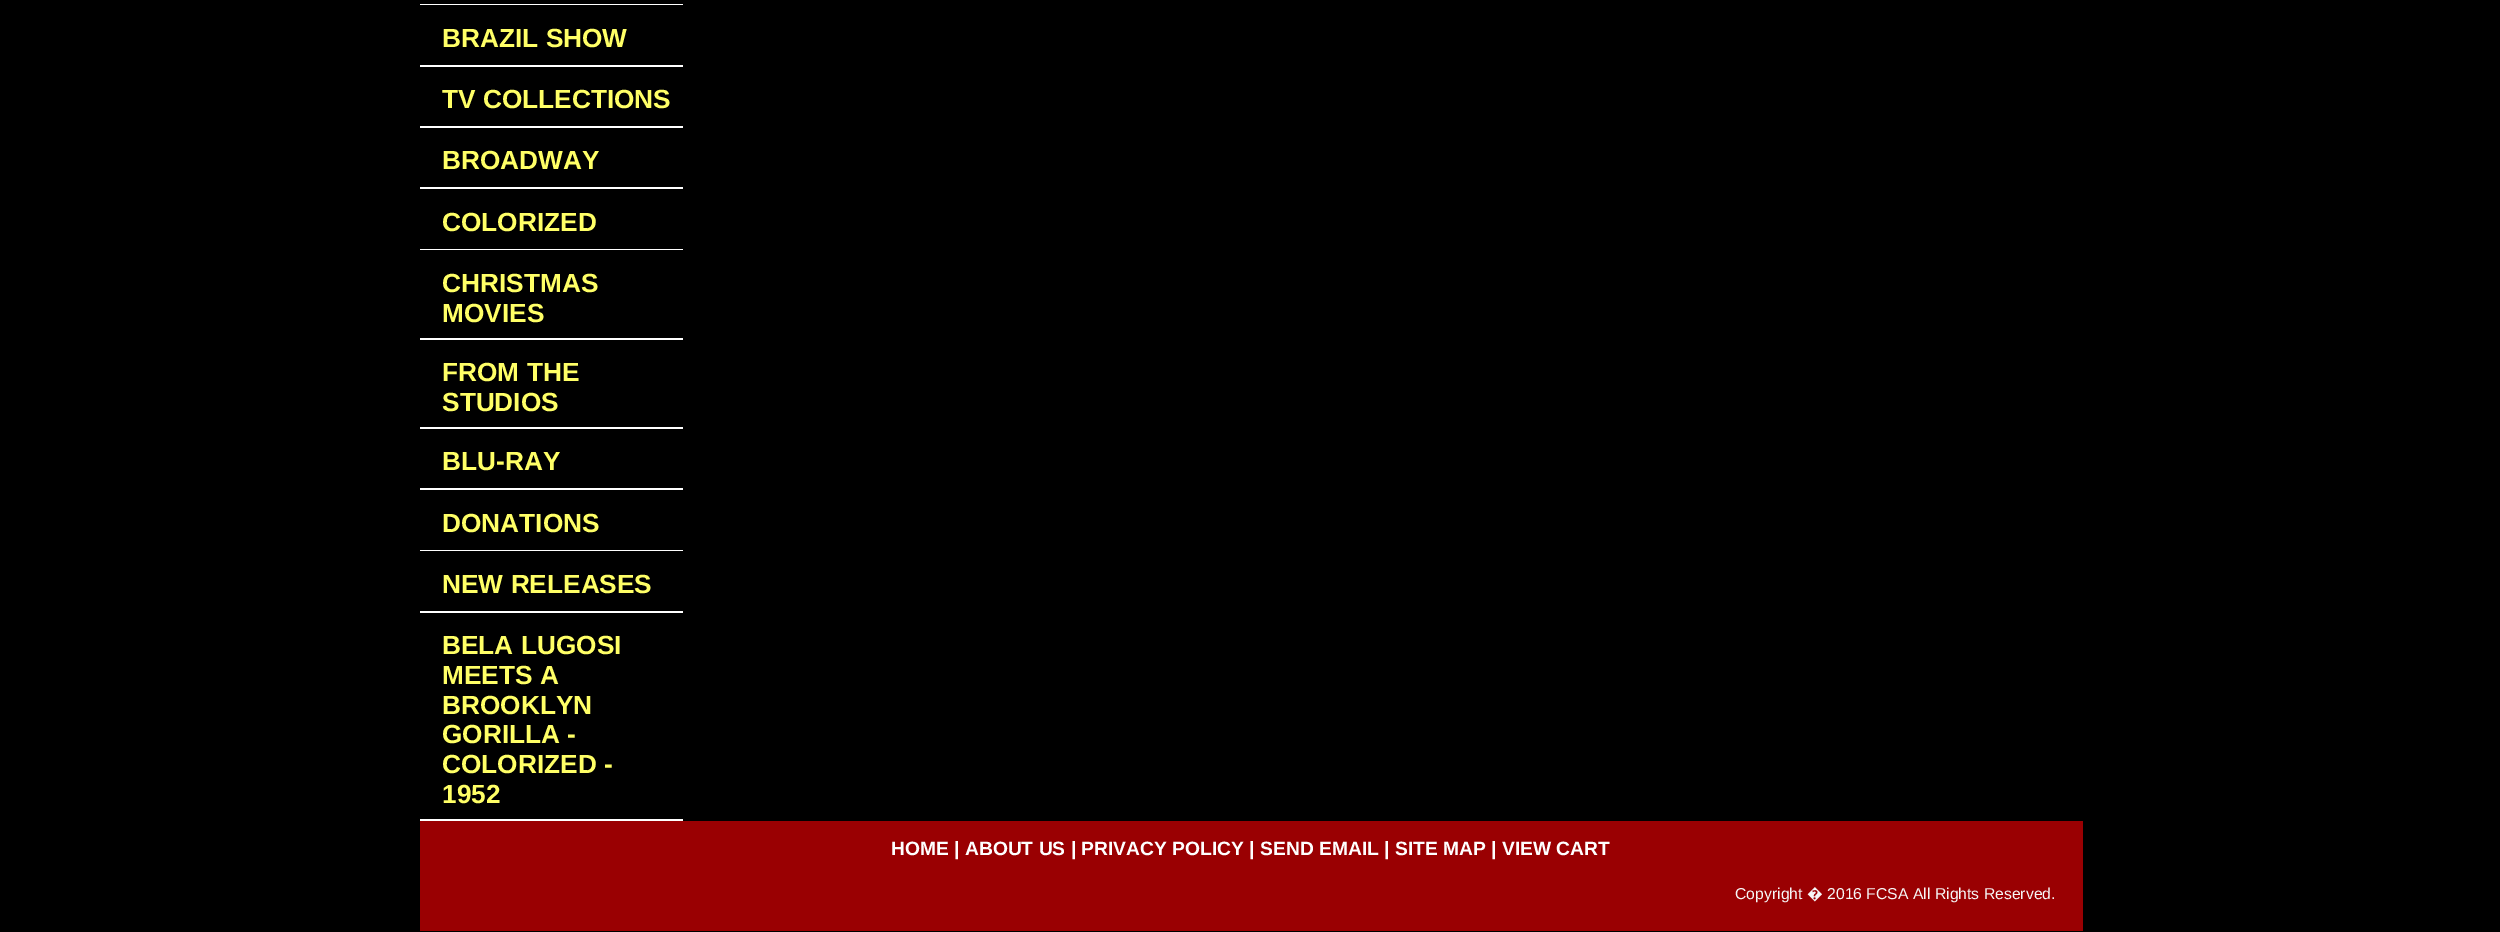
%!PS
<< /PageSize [2500 932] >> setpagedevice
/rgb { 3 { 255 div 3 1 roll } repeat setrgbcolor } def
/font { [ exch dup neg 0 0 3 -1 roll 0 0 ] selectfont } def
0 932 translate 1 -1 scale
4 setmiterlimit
0 0 0 rgb
0 0 2500 932 rectfill
[
  [420 4 263 1 255 255 255]
  [420 65 263 2 255 255 255]
  [420 126 263 2 255 255 255]
  [420 187 263 2 255 255 255]
  [420 249 263 1 255 255 255]
  [420 338 263 2 255 255 255]
  [420 427 263 2 255 255 255]
  [420 488 263 2 255 255 255]
  [420 550 263 1 255 255 255]
  [420 611 263 2 255 255 255]
  [420 819 263 2 255 255 255]
  [420 821 1663 110 154 0 2]
] { aload pop rgb rectfill } forall
/LiberationSans-Bold 26.25 font
255 255 102 rgb
[
  [(BRAZIL SHOW) 442 47]
  [(TV COLLECTIONS) 442 108]
  [(BROADWAY) 442 169]
  [(COLORIZED) 442 231]
  [(CHRISTMAS) 442 292]
  [(MOVIES) 442 322]
  [(FROM THE) 442 381]
  [(STUDIOS) 442 411]
  [(BLU-RAY) 442 470]
  [(DONATIONS) 442 532]
  [(NEW RELEASES) 442 593]
  [(BELA LUGOSI) 442 654]
  [(MEETS A) 442 684]
  [(BROOKLYN) 442 714]
  [(GORILLA -) 442 743]
  [(COLORIZED -) 442 773]
  [(1952) 442 803]
] { aload pop moveto show } forall
/LiberationSans-Bold 19.25 font
255 255 255 rgb
891 855 moveto (HOME | ABOUT US | PRIVACY POLICY | SEND EMAIL | SITE MAP | VIEW CART) show
/LiberationSans-Regular 15.75 font
246 246 246 rgb
1735 899 moveto (Copyright) show
/NotoSans-Regular 15.75 font
1807 899 moveto (�) show
/LiberationSans-Regular 15.75 font
1827 899 moveto (2016 FCSA All Rights Reserved.) show
showpage
